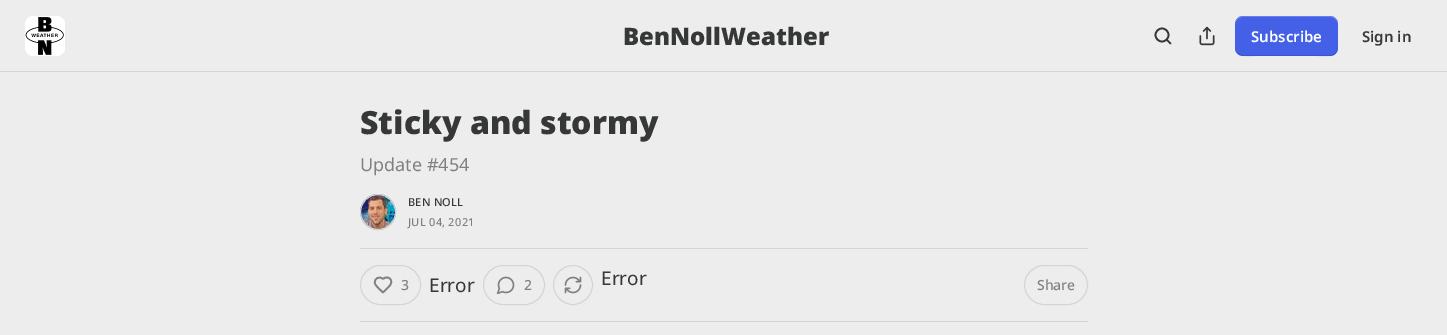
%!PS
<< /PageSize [1447 335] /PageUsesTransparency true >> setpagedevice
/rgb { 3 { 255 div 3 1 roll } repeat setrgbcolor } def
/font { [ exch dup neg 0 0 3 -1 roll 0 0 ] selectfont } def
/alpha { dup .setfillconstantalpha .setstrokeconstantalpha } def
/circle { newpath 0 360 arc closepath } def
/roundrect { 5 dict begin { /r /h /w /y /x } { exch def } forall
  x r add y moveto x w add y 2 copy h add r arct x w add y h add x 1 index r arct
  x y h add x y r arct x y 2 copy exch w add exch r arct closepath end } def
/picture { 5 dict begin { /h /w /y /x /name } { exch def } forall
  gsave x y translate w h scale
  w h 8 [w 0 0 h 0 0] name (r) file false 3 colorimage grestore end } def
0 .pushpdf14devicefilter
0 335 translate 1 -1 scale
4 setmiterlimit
237 237 237 rgb
0 0 1447 335 rectfill
213 213 213 rgb
0 71 1447 1 rectfill
255 255 255 rgb
25 16 40 40 8 roundrect fill
(img/1.rgb) 25 17 39 38 picture
54 55 55 rgb
1.7 setlinewidth
1162 35 6.5 circle stroke
1 setlinecap
1 setlinejoin
1170.5 43.5 moveto 1167 40 lineto stroke
(img/2.rgb) 1199 26 16 20 picture
68 96 231 rgb
1235 16 103 40 8 roundrect fill
0.1 alpha
0 0 0 rgb
1235 47 moveto 1235 59 1249 56 1258 56 curveto 1316 56 lineto 1324 56 1338 59 1338 47 curveto 1338 51 1334 55 1330 55 curveto 1243 55 lineto 1239 55 1235 51 1235 47 curveto closepath fill
0.2 alpha
255 255 255 rgb
1243 17 moveto 1330 17 lineto 1334 17 1338 21 1338 25 curveto 1338 13 1324 16 1316 16 curveto 1258 16 lineto 1249 16 1235 13 1235 25 curveto 1235 21 1239 17 1243 17 curveto closepath fill
1 alpha
213 213 213 rgb
1 setlinewidth
0 setlinecap
0 setlinejoin
378 212 17.5 circle stroke
(img/3.rgb) 360 194 36 36 picture
378 212 17.5 circle stroke
360 248 728 1 rectfill
360 321 728 1 rectfill
360.5 265.5 60 39 19.5 roundrect stroke
127 128 128 rgb
1.7 setlinewidth
1 setlinecap
1 setlinejoin
389 286.5 moveto 395 280.5 388 274.5 383 279 curveto 379.5 275.5 373.5 278.5 375 283.5 curveto 376 286.5 381 290.5 383 292.5 curveto closepath stroke
213 213 213 rgb
1 setlinewidth
0 setlinecap
0 setlinejoin
483.5 265.5 61 39 19.5 roundrect stroke
(img/4.rgb) 496 276 19 19 picture
573 285 19.5 circle stroke
(img/5.rgb) 564 276 18 18 picture
1024.5 265.5 63 39 19.5 roundrect stroke
/NotoSans-Black 24 font
54 55 55 rgb
623 45 moveto (BenNollWeather) show
/NotoSans-SemiBold 15 font
255 255 255 rgb
1251 42 moveto (Subscribe) show
54 55 55 rgb
1362 42 moveto (Sign in) show
/NotoSans-Black 32 font
360 134 moveto (Sticky and stormy) show
/NotoSans-Regular 18 font
127 128 128 rgb
360 171 moveto (Update #454) show
/NotoSans-Medium 11 font
54 55 55 rgb
408 206 moveto 0.25 0 (BEN NOLL) ashow
127 128 128 rgb
408 226 moveto 0.25 0 (JUL 04, 2021) ashow
/NotoSans-Medium 14 font
401 290 moveto (3) show
/NotoSans-Regular 19 font
54 55 55 rgb
429 292 moveto (Error) show
/NotoSans-Medium 14 font
127 128 128 rgb
524 290 moveto (2) show
/NotoSans-Regular 19 font
54 55 55 rgb
601 285 moveto (Error) show
/NotoSans-Medium 14 font
127 128 128 rgb
1037 290 moveto (Share) show
.poppdf14devicefilter showpage
